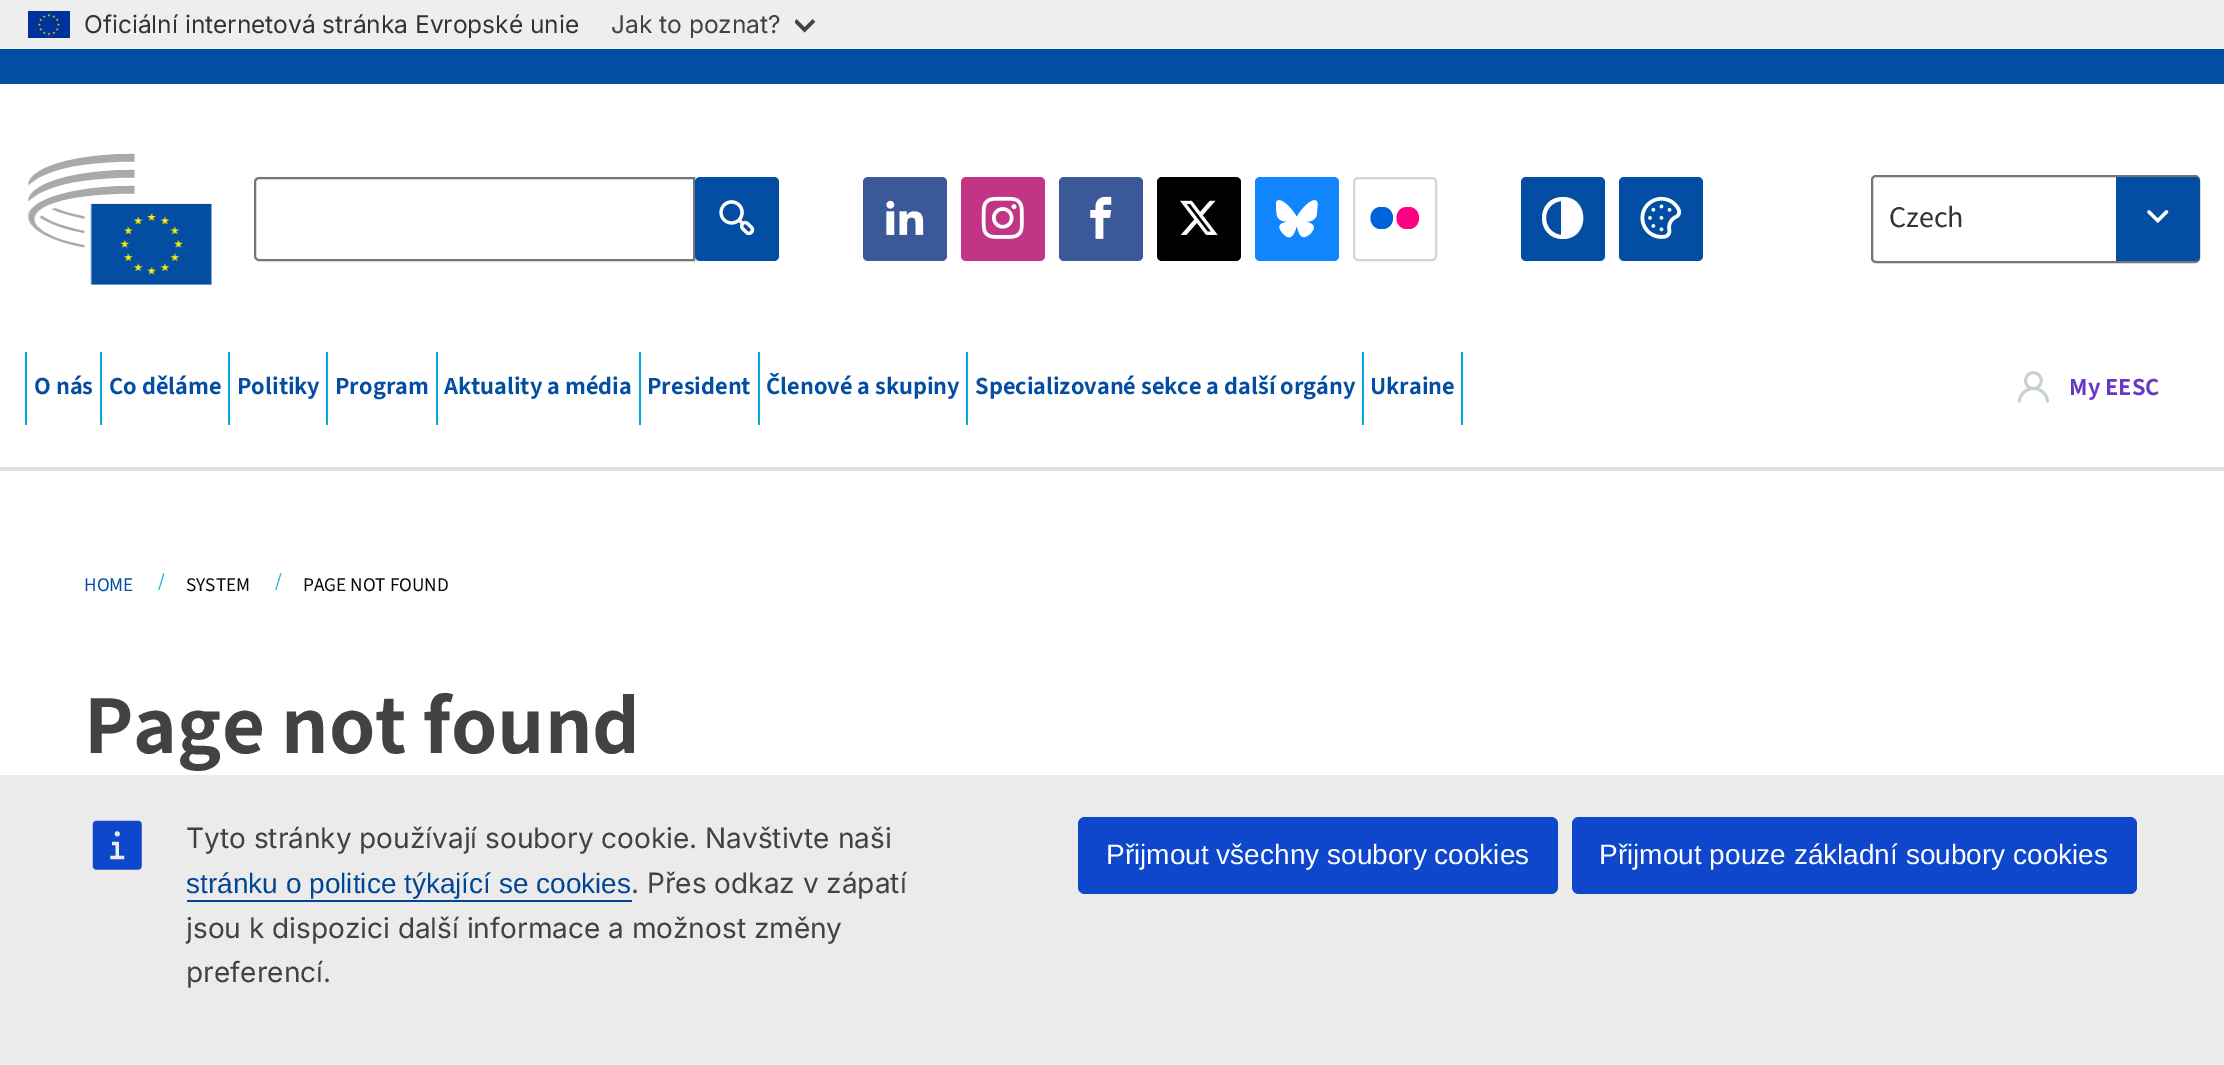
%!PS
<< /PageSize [2224 1065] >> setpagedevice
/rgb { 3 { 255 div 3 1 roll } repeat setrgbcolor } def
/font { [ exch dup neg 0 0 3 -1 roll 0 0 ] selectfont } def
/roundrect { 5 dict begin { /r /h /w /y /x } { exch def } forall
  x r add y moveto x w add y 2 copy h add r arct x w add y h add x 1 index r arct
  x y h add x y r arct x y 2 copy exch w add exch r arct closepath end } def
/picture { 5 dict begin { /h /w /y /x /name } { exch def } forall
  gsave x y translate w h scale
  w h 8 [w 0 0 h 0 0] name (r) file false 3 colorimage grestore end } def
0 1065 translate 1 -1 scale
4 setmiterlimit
255 255 255 rgb
0 0 2224 1065 rectfill
238 238 238 rgb
0 0 2224 49 rectfill
(img/1.rgb) 28 11 42 27 picture
(img/2.rgb) 795 19 21 14 picture
3 78 162 rgb
0 49 2224 35 rectfill
224 224 224 rgb
0 467 2224 4 rectfill
(img/3.rgb) 27 153 185 132 picture
117 117 117 rgb
2 setlinewidth
259 178 moveto 694 178 lineto 694 260 lineto 259 260 lineto 257 260 255 258 255 256 curveto 255 182 lineto 255 180 257 178 259 178 curveto closepath stroke
3 78 162 rgb
695 177 84 84 5 roundrect fill
(img/4.rgb) 719 200 36 36 picture
59 89 152 rgb
863 177 84 84 5 roundrect fill
(img/5.rgb) 886 200 38 35 picture
193 53 132 rgb
961 177 84 84 5 roundrect fill
(img/6.rgb) 981 196 43 43 picture
59 89 152 rgb
1059 177 84 84 5 roundrect fill
(img/7.rgb) 1090 196 22 43 picture
0 0 0 rgb
1157 177 84 84 5 roundrect fill
(img/8.rgb) 1180 200 38 35 picture
17 133 254 rgb
1255 177 84 84 5 roundrect fill
(img/9.rgb) 1276 200 42 38 picture
212 212 212 rgb
1354 178 82 82 4 roundrect stroke
gsave
1370 207 49 22 rectclip
255 0 132 rgb
1396.5 218 moveto 1396.5 233 1419 233 1419 218 curveto 1419 203 1396.5 203 1396.5 218 curveto closepath fill
0 99 220 rgb
1370.5 218 moveto 1370.5 233 1393 233 1393 218 curveto 1393 203 1370.5 203 1370.5 218 curveto closepath fill
grestore
3 78 162 rgb
1521 177 84 84 5 roundrect fill
255 255 255 rgb
1563 197 moveto 1535 197 1535 239 1563 239 curveto 1590 239 1590 197 1563 197 curveto closepath 1561 235 moveto 1541 232 1541 204 1561 201 curveto closepath fill
3 78 162 rgb
1619 177 84 84 5 roundrect fill
(img/10.rgb) 1640 196 42 43 picture
117 117 117 rgb
1872 176 327 86 4 roundrect stroke
3 78 162 rgb
2116 177 moveto 2195 177 lineto 2198 177 2200 179 2200 182 curveto 2200 256 lineto 2200 259 2198 261 2195 261 curveto 2116 261 lineto closepath fill
(img/11.rgb) 2147 210 22 14 picture
[
  [25 352 2 73 0 170 219]
  [100 352 2 73 0 170 219]
  [228 352 2 73 0 170 219]
  [326 352 2 73 0 170 219]
  [436 352 2 73 0 170 219]
  [639 352 2 73 0 170 219]
  [758 352 2 73 0 170 219]
  [966 352 2 73 0 170 219]
  [1461 352 2 73 0 170 219]
  [1362 352 2 73 0 170 219]
] { aload pop rgb rectfill } forall
(img/12.rgb) 2017 371 32 32 picture
235 235 235 rgb
0 775 2224 290 rectfill
(img/13.rgb) 92 820 50 50 picture
0 68 148 rgb
187 900 445 2 rectfill
14 71 203 rgb
1078 817 480 77 7 roundrect fill
1572 817 565 77 7 roundrect fill
/Inter-Regular 24.5 font
51 51 51 rgb
84 33 moveto (Oficiální internetová stránka Evropské unie) show
66 66 66 rgb
611 33 moveto (Jak to poznat?) show
/SourceSans3-Regular 30 font
51 51 51 rgb
1889 227 moveto (Czech) show
/SourceSans3-SemiBold 24.6 font
3 78 162 rgb
[
  [(O nás) 34 394]
  [(Co děláme) 109 394]
  [(Politiky) 237 394]
  [(Program) 335 394]
  [(Aktuality a média) 444 394]
  [(President) 647 394]
  [(Členové a skupiny) 766 394]
  [(Specializované sekce a další orgány) 975 394]
  [(Ukraine) 1370 394]
] { aload pop moveto show } forall
104 57 198 rgb
2069 395 moveto (My EESC) show
/SourceSans3-Regular 19.25 font
3 78 162 rgb
84 591 moveto (HOME) show
0 170 219 rgb
158 587 moveto (/) show
10 10 10 rgb
186 591 moveto (SYSTEM) show
0 170 219 rgb
275 587 moveto (/) show
10 10 10 rgb
303 591 moveto (PAGE NOT FOUND) show
/SourceSans3-SemiBold 84 font
66 66 66 rgb
84 753 moveto (Page not found) show
/Inter-Regular 28 font
186 848 moveto (Tyto stránky používají soubory cookie. Navštivte naši) show
/LiberationSans-Regular 28 font
0 68 148 rgb
186 893 moveto (stránku o politice týkající se cookies) show
/Inter-Regular 28 font
66 66 66 rgb
[
  [(. Přes odkaz v zápatí) 631 893]
  [(jsou k dispozici další informace a možnost změny) 186 938]
  [(preferencí.) 186 982]
] { aload pop moveto show } forall
/LiberationSans-Regular 28 font
255 255 255 rgb
1106 864 moveto (Přijmout všechny soubory cookies) show
1599 864 moveto (Přijmout pouze základní soubory cookies) show
showpage
